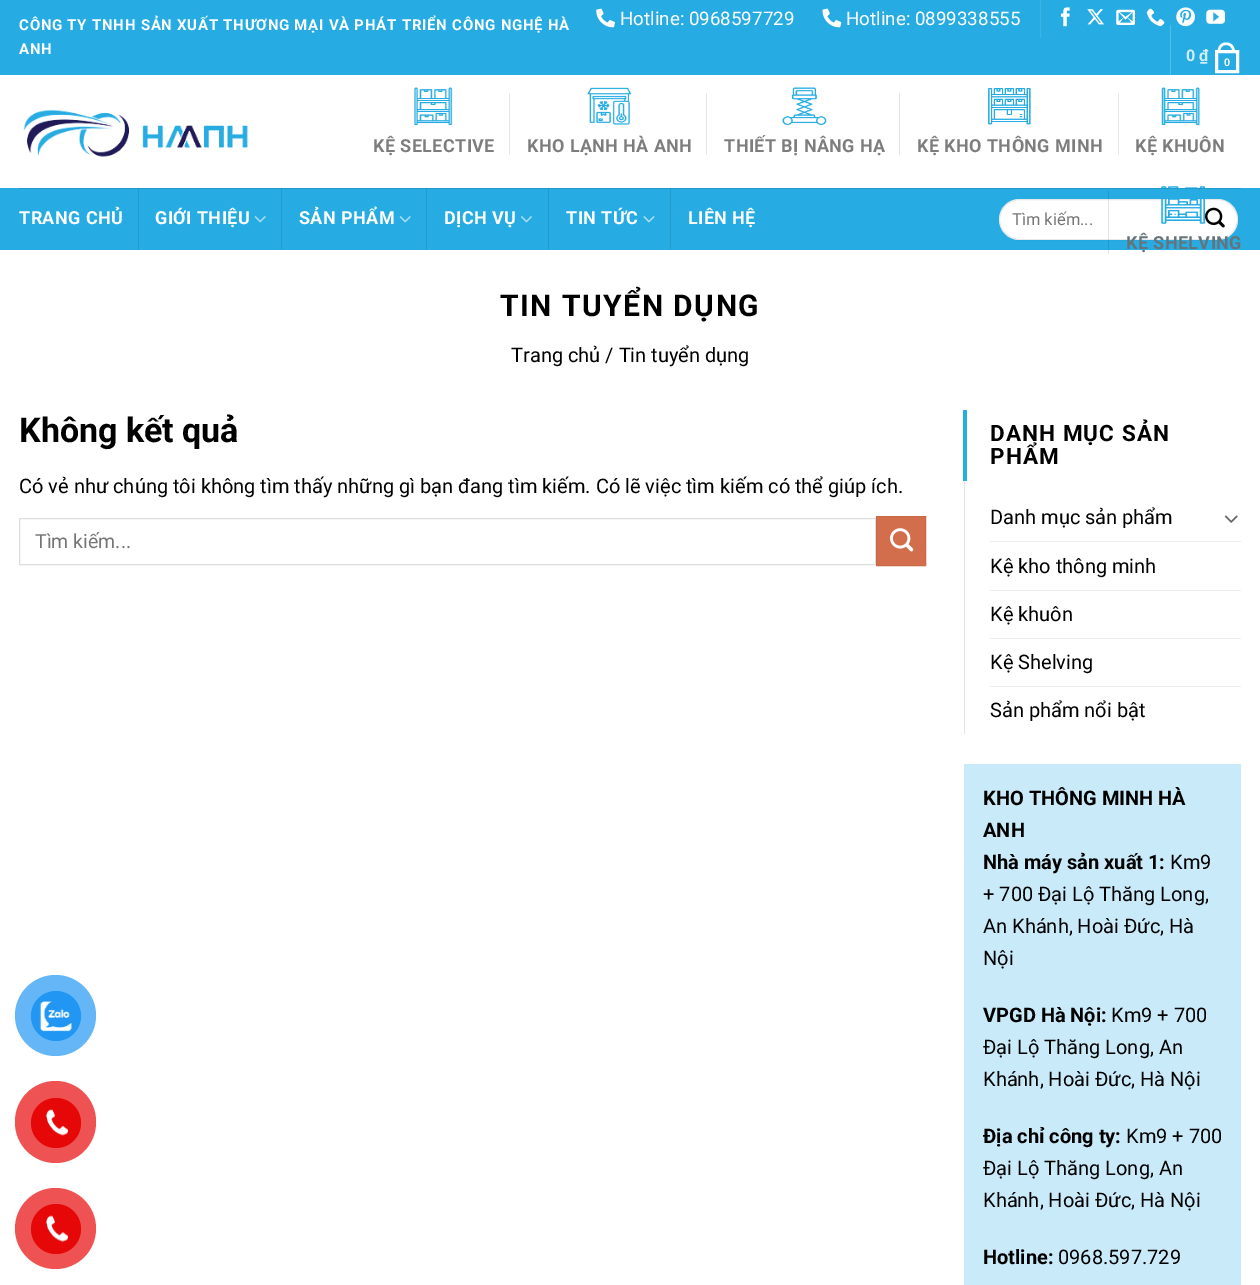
%!PS
<< /PageSize [1260 1285] /PageUsesTransparency true >> setpagedevice
/rgb { 3 { 255 div 3 1 roll } repeat setrgbcolor } def
/font { [ exch dup neg 0 0 3 -1 roll 0 0 ] selectfont } def
/alpha { dup .setfillconstantalpha .setstrokeconstantalpha } def
/circle { newpath 0 360 arc closepath } def
/roundrect { 5 dict begin { /r /h /w /y /x } { exch def } forall
  x r add y moveto x w add y 2 copy h add r arct x w add y h add x 1 index r arct
  x y h add x y r arct x y 2 copy exch w add exch r arct closepath end } def
/picture { 5 dict begin { /h /w /y /x /name } { exch def } forall
  gsave x y translate w h scale
  w h 8 [w 0 0 h 0 0] name (r) file false 3 colorimage grestore end } def
0 .pushpdf14devicefilter
0 1285 translate 1 -1 scale
4 setmiterlimit
255 255 255 rgb
0 0 1260 1285 rectfill
38 172 226 rgb
0 0 1260 75 rectfill
81 189 232 rgb
1170 25 1 50 rectfill
(img/1.rgb) 596 8 19 20 picture
(img/2.rgb) 822 8 20 20 picture
60 180 229 rgb
1040 0 1 38 rectfill
(img/3.rgb) 1060 7 10 20 picture
(img/4.rgb) 1087 9 17 16 picture
(img/5.rgb) 1116 9 19 16 picture
(img/6.rgb) 1146 8 19 19 picture
(img/7.rgb) 1176 7 19 20 picture
(img/8.rgb) 1206 9 19 15 picture
255 255 255 rgb
3 setlinewidth
1216.5 51.5 21 20 rectstroke
1226 42.5 moveto 1232 42.5 1235 47 1235 52.5 curveto 1217.5 52.5 lineto 1217.5 47 1220.5 42.5 1226 42.5 curveto closepath 1226 45 moveto 1230.5 45 1232.5 48.5 1232.5 52.5 curveto 1220 52.5 lineto 1220 48.5 1222 45 1226 45 curveto closepath eofill
(img/9.rgb) 23 109 225 48 picture
(img/10.rgb) 414 87 39 38 picture
230 230 230 rgb
509 93 1 62 rectfill
(img/11.rgb) 587 87 45 38 picture
706 93 1 62 rectfill
(img/12.rgb) 782 87 45 38 picture
899 93 1 62 rectfill
(img/13.rgb) 988 88 43 37 picture
1118 93 1 62 rectfill
(img/14.rgb) 1161 87 39 38 picture
38 172 226 rgb
0 188 1260 62 rectfill
255 255 255 rgb
999 199 239 41 20.5 roundrect fill
0.09 alpha
0 0 0 rgb
1 setlinewidth
999.5 199.5 238 40 20 roundrect stroke
0.1 alpha
1108 191 1 63 rectfill
1 alpha
(img/15.rgb) 1161 186 44 38 picture
[
  [138 188 1 62 34 155 203]
  [281 188 1 62 34 155 203]
  [426 188 1 62 34 155 203]
  [548 188 1 62 34 155 203]
  [670 188 1 62 34 155 203]
] { aload pop rgb rectfill } forall
0.1 alpha
[
  [19 188 1222 1 0 0 0]
] { aload pop rgb rectfill } forall
1 alpha
(img/16.rgb) 254 216 12 7 picture
(img/16.rgb) 399 216 12 7 picture
(img/17.rgb) 521 216 11 7 picture
(img/18.rgb) 643 216 12 7 picture
(img/19.rgb) 1205 207 20 21 picture
221 221 221 rgb
19.5 518.5 856 46 rectstroke
210 110 75 rgb
876.5 516.5 moveto 925.5 516.5 lineto 925.5 565.5 lineto 876.5 565.5 lineto closepath gsave fill grestore
200 105 71 rgb
stroke
(img/20.rgb) 890 528 24 24 picture
226 230 234 rgb
964 481 1 253 rectfill
38 172 226 rgb
963 410 4 71 rectfill
(img/21.rgb) 1224 515 14 8 picture
[
  [990 541 251 1 236 236 236]
  [990 590 251 1 236 236 236]
  [990 638 251 1 236 236 236]
  [990 686 251 1 236 236 236]
  [964 764 277 521 201 234 248]
] { aload pop rgb rectfill } forall
100 182 247 rgb
55.5 1015.5 40.5 circle fill
33 150 243 rgb
56 1016 25 circle fill
(img/22.rgb) 39 1001 33 31 picture
238 82 82 rgb
15 1081 81 82 40.5 roundrect fill
230 8 8 rgb
56 1123 25 circle fill
(img/23.rgb) 46 1109 22 27 picture
238 82 82 rgb
55.5 1228.5 40.5 circle fill
230 8 8 rgb
56 1229 25 circle fill
(img/24.rgb) 46 1215 22 27 picture
/Roboto-Bold 15 font
255 255 255 rgb
19 30 moveto 0.75 0 (CÔNG TY TNHH SẢN XUẤT THƯƠNG MẠI VÀ PHÁT TRIỂN CÔNG NGHỆ HÀ) ashow
19 54 moveto 0.75 0 (ANH) ashow
/Roboto-Regular 18.75 font
620 25 moveto (Hotline: 0968597729) show
846 25 moveto (Hotline: 0899338555) show
/Roboto-Bold 16 font
212 238 249 rgb
1186 61 moveto (0 ₫) show
/LiberationSans-Bold 11 font
255 255 255 rgb
1224 66 moveto (0) show
/Roboto-Bold 18 font
125 125 125 rgb
373 152 moveto 0.4 0 (KỆ SELECTIVE) ashow
527 152 moveto 0.4 0 (KHO LẠNH HÀ ANH) ashow
724 152 moveto 0.4 0 (THIẾT BỊ NÂNG HẠ) ashow
917 152 moveto 0.4 0 (KỆ KHO THÔNG MINH) ashow
1135 152 moveto 0.4 0 (KỆ KHUÔN) ashow
101 116 122 rgb
1126 249 moveto 0.4 0 (KỆ SHELVING) ashow
255 255 255 rgb
19 224 moveto 0.4 0 (TRANG CHỦ) ashow
155 224 moveto 0.4 0 (GIỚI THIỆU) ashow
299 224 moveto 0.4 0 (SẢN PHẨM) ashow
444 224 moveto 0.4 0 (DỊCH VỤ) ashow
566 224 moveto 0.4 0 (TIN TỨC) ashow
688 224 moveto 0.4 0 (LIÊN HỆ) ashow
/Roboto-Regular 16.5 font
117 117 117 rgb
1012 225 moveto (Tìm kiếm...) show
/Roboto-Bold 30 font
0 0 0 rgb
500 316 moveto 1.5 0 (TIN TUYỂN DỤNG) ashow
/Roboto-Regular 20 font
511 362 moveto (Trang chủ / Tin tuyển dụng) show
/Roboto-Bold 34 font
19 442 moveto (Không kết quả) show
/Roboto-Regular 20 font
19 493 moveto (Có vẻ như chúng tôi không tìm thấy những gì bạn đang tìm kiếm. Có lẽ việc tìm kiếm có thể giúp ích.) show
/Roboto-Regular 19.5 font
117 117 117 rgb
35 548 moveto (Tìm kiếm...) show
/Roboto-Bold 22.5 font
0 0 0 rgb
990 441 moveto 1.1 0 (DANH MỤC SẢN) ashow
990 464 moveto 1.1 0 (PHẨM) ashow
/Roboto-Regular 20 font
[
  [(Danh mục sản phẩm) 990 524]
  [(Kệ kho thông minh) 990 573]
  [(Kệ khuôn) 990 621]
  [(Kệ Shelving) 990 669]
  [(Sản phẩm nổi bật) 990 717]
] { aload pop moveto show } forall
/Roboto-Bold 20 font
[
  [(KHO THÔNG MINH HÀ) 983 805]
  [(ANH) 983 837]
  [(Nhà máy sản xuất 1:) 983 869]
] { aload pop moveto show } forall
/Roboto-Regular 20 font
[
  [(Km9) 1170 869]
  [(+ 700 Đại Lộ Thăng Long,) 983 901]
  [(An Khánh, Hoài Đức, Hà) 983 933]
  [(Nội) 983 965]
] { aload pop moveto show } forall
/Roboto-Bold 20 font
983 1022 moveto (VPGD Hà Nội:) show
/Roboto-Regular 20 font
[
  [(Km9 + 700) 1111 1022]
  [(Đại Lộ Thăng Long, An) 983 1054]
  [(Khánh, Hoài Đức, Hà Nội) 983 1086]
] { aload pop moveto show } forall
/Roboto-Bold 20 font
983 1143 moveto (Địa chỉ công ty:) show
/Roboto-Regular 20 font
[
  [(Km9 + 700) 1126 1143]
  [(Đại Lộ Thăng Long, An) 983 1175]
  [(Khánh, Hoài Đức, Hà Nội) 983 1207]
] { aload pop moveto show } forall
/Roboto-Bold 20 font
983 1264 moveto (Hotline:) show
/Roboto-Regular 20 font
1058 1264 moveto (0968.597.729) show
.poppdf14devicefilter showpage
